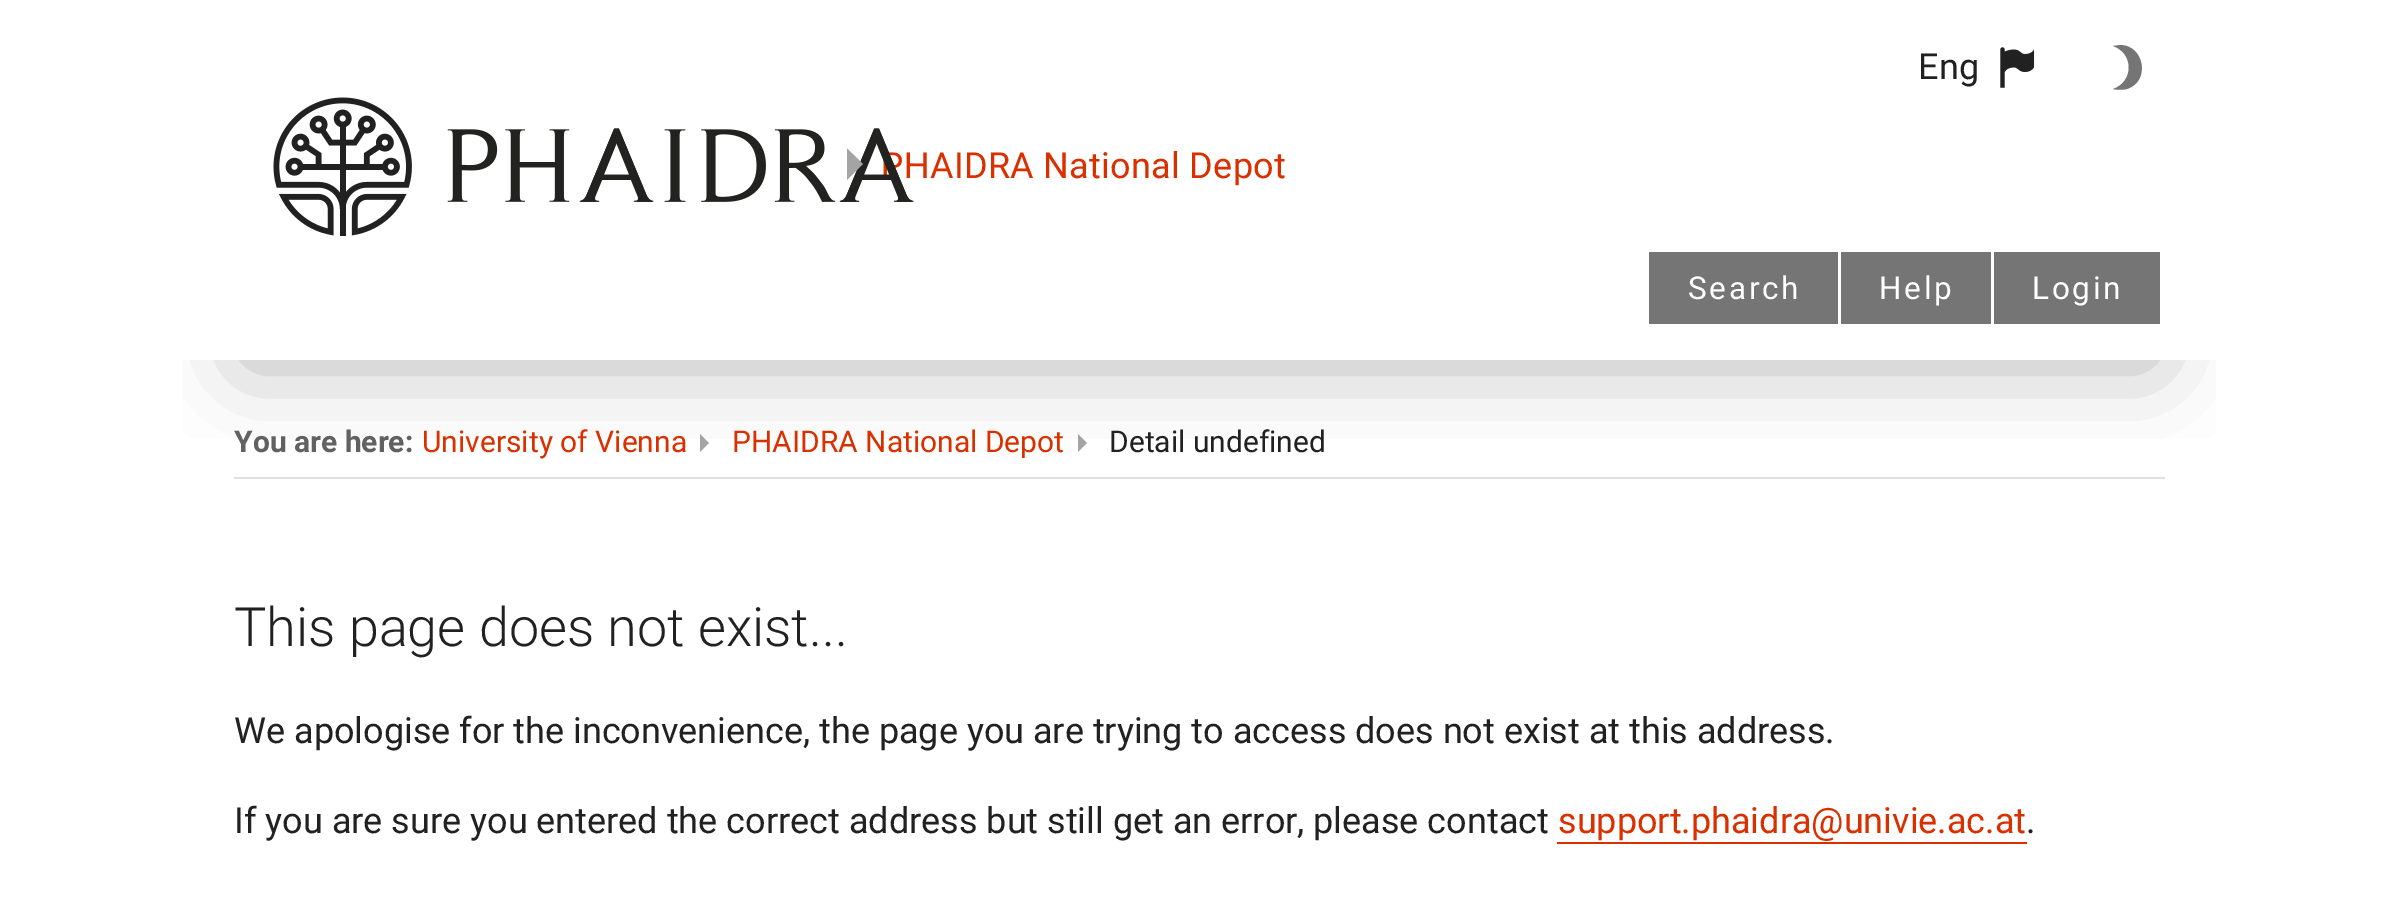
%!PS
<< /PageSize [2397 901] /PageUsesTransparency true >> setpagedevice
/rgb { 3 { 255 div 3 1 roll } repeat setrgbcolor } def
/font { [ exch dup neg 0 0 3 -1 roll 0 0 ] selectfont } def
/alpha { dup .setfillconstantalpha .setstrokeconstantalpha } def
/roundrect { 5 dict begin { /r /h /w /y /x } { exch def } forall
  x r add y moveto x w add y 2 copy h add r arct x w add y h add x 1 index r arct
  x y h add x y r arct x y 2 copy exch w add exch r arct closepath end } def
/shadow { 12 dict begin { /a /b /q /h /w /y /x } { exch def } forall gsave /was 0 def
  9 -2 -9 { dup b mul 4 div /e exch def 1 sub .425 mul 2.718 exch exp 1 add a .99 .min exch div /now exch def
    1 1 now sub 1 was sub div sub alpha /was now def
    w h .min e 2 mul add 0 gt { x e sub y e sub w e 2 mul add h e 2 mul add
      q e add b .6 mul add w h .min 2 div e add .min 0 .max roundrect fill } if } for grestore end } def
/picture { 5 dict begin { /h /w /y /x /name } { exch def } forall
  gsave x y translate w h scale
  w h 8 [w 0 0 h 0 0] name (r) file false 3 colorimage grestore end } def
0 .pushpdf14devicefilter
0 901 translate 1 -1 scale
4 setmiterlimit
255 255 255 rgb
0 0 2397 901 rectfill
164 164 164 rgb
700 434 moveto 700 452 lineto 709 443 lineto closepath fill
1078 434 moveto 1078 452 lineto 1087 443 lineto closepath fill
224 224 224 rgb
234 477 1931 2 rectfill
gsave
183 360 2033 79 rectclip
70 70 70 rgb
243 32 1913 333 0 45 0.4 shadow
grestore
255 255 255 rgb
161 0 69 360 rectfill
2169 0 69 360 rectfill
(img/2.rgb) 2000 47 35 41 picture
117 117 117 rgb
2120 45 moveto 2113 46 lineto 2134 53 2134 82 2113 89 curveto 2117 90 2122 90 2127 89 curveto 2151 81 2144 45 2120 45 curveto closepath fill
[
  [1649 252 189 72 117 117 117]
  [1841 252 150 72 117 117 117]
  [1994 252 166 72 117 117 117]
  [1557 842 470 2 218 48 0]
] { aload pop rgb rectfill } forall
/Roboto-Regular 36 font
33 33 33 rgb
1918 79 moveto 0.3 0 (Eng) ashow
218 48 0 rgb
881 178 moveto 0.3 0 (PHAIDRA National Depot) ashow
(img/1.rgb) 273 97 641 139 picture
164 164 164 rgb
847 148.5 moveto 847 180 lineto 863 164 lineto closepath fill
/Roboto-Regular 31.5 font
255 255 255 rgb
1688 299 moveto 2.75 0 (Search) ashow
1879 299 moveto 2.75 0 (Help) ashow
2032 299 moveto 2.75 0 (Login) ashow
/Roboto-Bold 30 font
97 97 97 rgb
234 452 moveto (You are here:) show
/Roboto-Regular 30 font
218 48 0 rgb
422 452 moveto (University of Vienna) show
732 452 moveto (PHAIDRA National Depot) show
33 33 33 rgb
1109 452 moveto (Detail undefined) show
/Roboto-Light 54 font
234 646 moveto (This page does not exist...) show
/Roboto-Regular 36 font
234 743 moveto (We apologise for the inconvenience, the page you are trying to access does not exist at this address.) show
234 833 moveto (If you are sure you entered the correct address but still get an error, please contact) show
218 48 0 rgb
1558 833 moveto (support.phaidra@univie.ac.at) show
33 33 33 rgb
2026 833 moveto (.) show
.poppdf14devicefilter showpage
